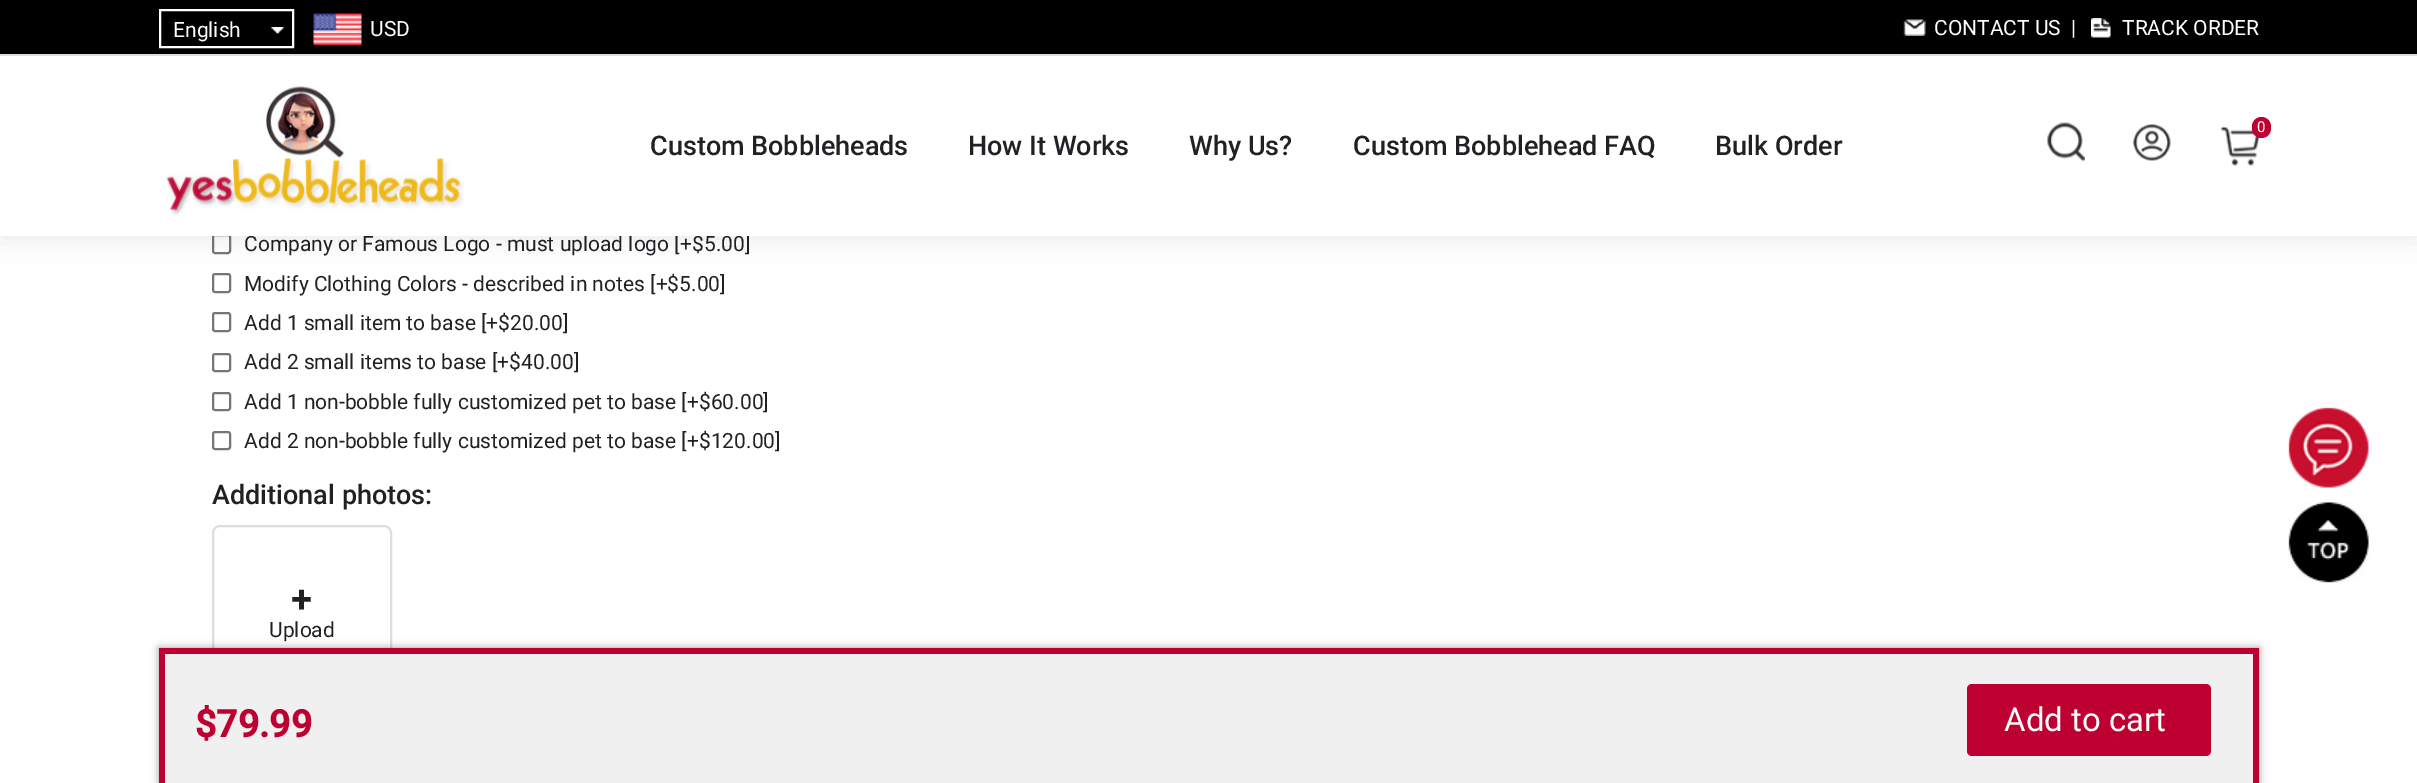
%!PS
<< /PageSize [2417 783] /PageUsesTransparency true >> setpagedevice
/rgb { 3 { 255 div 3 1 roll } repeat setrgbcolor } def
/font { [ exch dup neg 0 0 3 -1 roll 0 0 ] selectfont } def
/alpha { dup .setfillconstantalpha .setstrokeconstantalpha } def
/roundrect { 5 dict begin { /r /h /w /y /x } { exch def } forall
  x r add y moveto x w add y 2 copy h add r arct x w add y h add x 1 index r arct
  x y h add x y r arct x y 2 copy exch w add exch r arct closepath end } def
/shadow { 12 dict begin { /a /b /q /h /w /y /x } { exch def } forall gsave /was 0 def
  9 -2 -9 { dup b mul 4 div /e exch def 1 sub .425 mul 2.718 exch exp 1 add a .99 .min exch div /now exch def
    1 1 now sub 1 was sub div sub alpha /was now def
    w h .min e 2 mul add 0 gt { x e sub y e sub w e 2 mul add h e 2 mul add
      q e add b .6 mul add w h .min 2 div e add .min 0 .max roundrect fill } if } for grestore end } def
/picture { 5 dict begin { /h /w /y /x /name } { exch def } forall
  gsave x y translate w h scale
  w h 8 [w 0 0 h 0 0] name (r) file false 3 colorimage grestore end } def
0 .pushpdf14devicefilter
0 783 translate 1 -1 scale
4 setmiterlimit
255 255 255 rgb
0 0 2417 783 rectfill
118 118 118 rgb
2 setlinewidth
213 235 17 18 2 roundrect stroke
213 274 17 18 2 roundrect stroke
0 0 0 rgb
0 0 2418 236 0 15 0.1 shadow
0 0 2417 54 rectfill
221 221 221 rgb
0 54 2417 2 rectfill
255 255 255 rgb
160 10 133 37 rectstroke
(img/1.rgb) 270 27 15 8 picture
(img/2.rgb) 313 13 49 33 picture
(img/3.rgb) 1903 19 23 17 picture
(img/4.rgb) 2091 18 20 20 picture
118 118 118 rgb
213 313 17 18 2 roundrect stroke
213 354 17 17 2 roundrect stroke
213 393 17 17 2 roundrect stroke
213 432 17 17 2 roundrect stroke
222 222 222 rgb
213 526 178 178 7 roundrect stroke
0 0 0 rgb
159 648 2100 135 0 4 0.4 shadow
[
  [165 654 2088 129 240 240 240]
  [159 648 2100 6 189 0 49]
  [2253 648 6 135 189 0 49]
  [159 648 6 135 189 0 49]
] { aload pop rgb rectfill } forall
1967 684 244 72 5 roundrect fill
(img/9.rgb) 2288 407 81 81 picture
(img/10.rgb) 2288 502 81 81 picture
/Roboto-Regular 21 font
255 255 255 rgb
[
  [(English) 173 37]
  [(USD) 370 36]
  [(CONTACT US) 1934 35]
  [(|) 2071 35]
  [(TRACK ORDER) 2122 35]
] { aload pop moveto show } forall
32 33 36 rgb
244 251 moveto (Company or Famous Logo - must upload logo [+$5.00]) show
255 255 255 rgb
0 56 2417 180 rectfill
/Roboto-Medium 27 font
32 33 36 rgb
[
  [(Bulk Order) 1715 155]
  [(Custom Bobblehead FAQ) 1353 155]
  [(Why Us?) 1189 155]
  [(How It Works) 968 155]
  [(Custom Bobbleheads) 650 155]
] { aload pop moveto show } forall
(img/8.rgb) 2221 127 38 39 picture
189 0 49 rgb
2252 117 19 21 9.5 roundrect fill
/Roboto-Regular 15 font
255 255 255 rgb
2257 132 moveto (0) show
(img/6.rgb) 2047 122 38 39 picture
(img/7.rgb) 2133 124 38 37 picture
(img/5.rgb) 166 86 298 130 picture
/Roboto-Regular 21 font
32 33 36 rgb
[
  [(Modify Clothing Colors - described in notes [+$5.00]) 244 291]
  [(Add 1 small item to base [+$20.00]) 244 330]
  [(Add 2 small items to base [+$40.00]) 244 369]
  [(Add 1 non-bobble fully customized pet to base [+$60.00]) 244 409]
  [(Add 2 non-bobble fully customized pet to base [+$120.00]) 244 448]
] { aload pop moveto show } forall
/Roboto-Medium 27 font
212 504 moveto (Additional photos:) show
/Roboto-Bold 36 font
291 612 moveto (+) show
/Roboto-Regular 21 font
269 637 moveto (Upload) show
/Roboto-Bold 37.5 font
189 0 49 rgb
195 737 moveto ($79.99) show
/Roboto-Regular 33 font
255 255 255 rgb
2004 731 moveto (Add to cart) show
.poppdf14devicefilter showpage
